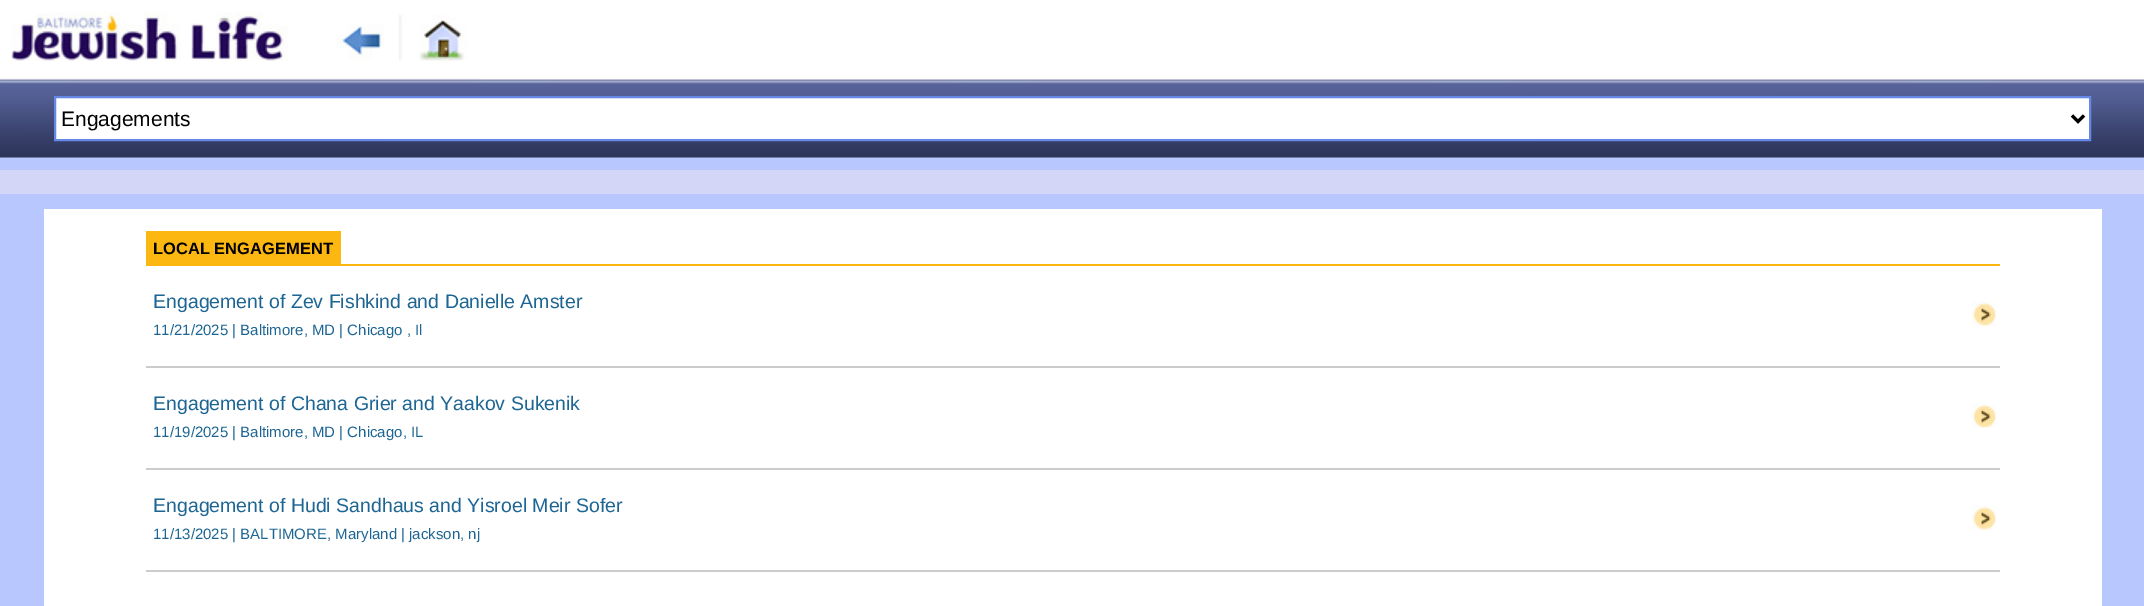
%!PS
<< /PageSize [2144 606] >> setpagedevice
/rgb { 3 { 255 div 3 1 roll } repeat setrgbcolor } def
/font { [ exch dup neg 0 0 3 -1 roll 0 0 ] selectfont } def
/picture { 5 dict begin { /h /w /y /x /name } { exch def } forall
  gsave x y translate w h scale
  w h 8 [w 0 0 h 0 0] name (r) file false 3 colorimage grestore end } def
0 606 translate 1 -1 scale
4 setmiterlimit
185 199 255 rgb
0 0 2144 606 rectfill
255 255 255 rgb
0 0 2144 80 rectfill
(img/1.rgb) 0 12 480 68 picture
(img/2.rgb) 336 14 132 47 picture
(img/3.rgb) 0 79 2144 79 picture
55 97 moveto 2090 97 lineto 2090 140 lineto 55 140 lineto closepath gsave fill grestore
101 135 229 rgb
2 setlinewidth
stroke
0 0 0 rgb
3 setlinewidth
2072 115.5 moveto 2078 121.5 lineto 2084 115.5 lineto stroke
[
  [0 170 2144 24 211 214 247]
  [44 209 2058 397 255 255 255]
  [146 264 1854 2 252 183 17]
  [146 231 195 33 252 183 17]
] { aload pop rgb rectfill } forall
(img/4.rgb) 1971 301 25 25 picture
204 204 204 rgb
146 366 1854 2 rectfill
(img/4.rgb) 1971 403 25 25 picture
146 468 1854 2 rectfill
(img/4.rgb) 1971 505 25 25 picture
146 570 1854 2 rectfill
/LiberationSans-Regular 21 font
0 0 0 rgb
61 126 moveto (Engagements) show
/LiberationSans-Bold 16.5 font
153 254 moveto (LOCAL ENGAGEMENT) show
/LiberationSans-Regular 19.5 font
29 102 148 rgb
153 308 moveto (Engagement of Zev Fishkind and Danielle Amster) show
/LiberationSans-Regular 15 font
153 335 moveto (11/21/2025 | Baltimore, MD | Chicago , Il) show
/LiberationSans-Regular 19.5 font
153 410 moveto (Engagement of Chana Grier and Yaakov Sukenik) show
/LiberationSans-Regular 15 font
153 437 moveto (11/19/2025 | Baltimore, MD | Chicago, IL) show
/LiberationSans-Regular 19.5 font
153 512 moveto (Engagement of Hudi Sandhaus and Yisroel Meir Sofer) show
/LiberationSans-Regular 15 font
153 539 moveto (11/13/2025 | BALTIMORE, Maryland | jackson, nj) show
showpage
